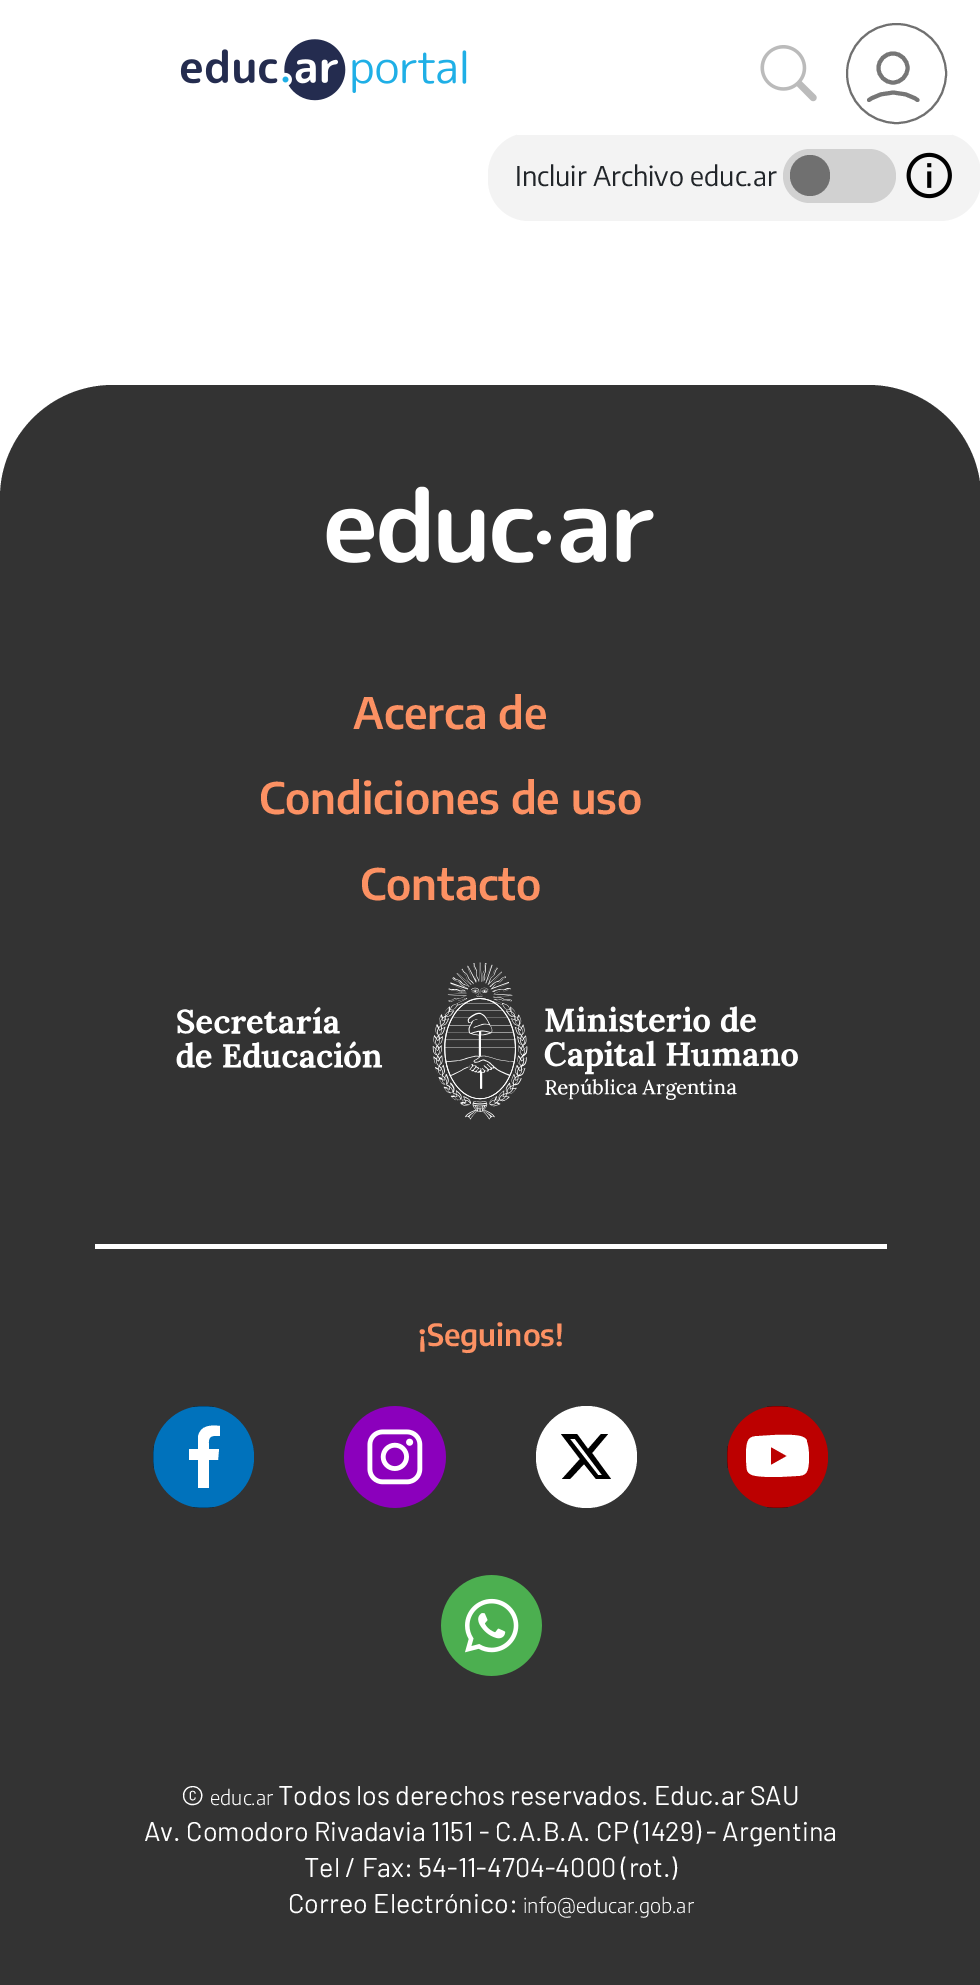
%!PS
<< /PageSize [980 1985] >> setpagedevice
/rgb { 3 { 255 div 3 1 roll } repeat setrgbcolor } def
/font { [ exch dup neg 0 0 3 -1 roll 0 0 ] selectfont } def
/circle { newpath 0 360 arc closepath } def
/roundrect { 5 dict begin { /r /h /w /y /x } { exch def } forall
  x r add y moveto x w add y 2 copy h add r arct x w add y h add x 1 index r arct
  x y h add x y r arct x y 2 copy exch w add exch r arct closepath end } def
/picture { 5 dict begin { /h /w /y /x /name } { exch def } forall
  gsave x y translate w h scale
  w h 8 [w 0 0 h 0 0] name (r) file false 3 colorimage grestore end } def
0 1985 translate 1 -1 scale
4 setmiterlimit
255 255 255 rgb
0 0 980 1985 rectfill
243 243 243 rgb
488 133 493 88 41 roundrect fill
255 255 255 rgb
517 133 435 2 rectfill
(img/1.rgb) 180 39 287 62 picture
(img/2.rgb) 760 45 57 57 picture
112 112 112 rgb
2 setlinewidth
896.5 73.5 49.5 circle stroke
118 118 118 rgb
4 setlinewidth
893 68 14.5 circle stroke
1 setlinecap
1 setlinejoin
869 100 moveto 884 90 902.5 90 917.5 100 curveto stroke
209 209 209 rgb
783 149 113 54 27 roundrect fill
112 112 112 rgb
790 155 40 41 20 roundrect fill
(img/3.rgb) 906 152 46 47 picture
51 51 51 rgb
113 385 moveto 868 385 lineto 930.5 385 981 435.5 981 498 curveto 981 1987 lineto 0 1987 lineto 0 498 lineto 0 435.5 50.5 385 113 385 curveto closepath fill
(img/4.rgb) 326 486 328 77 picture
(img/5.rgb) 176 962 622 158 picture
255 255 255 rgb
95 1244 792 5 rectfill
0 114 188 rgb
153 1406 101 102 50.5 roundrect fill
gsave
153 1406 101 102 50.5 roundrect clip newpath
0 0 0 rgb
0.2 setlinewidth
0 setlinecap
0 setlinejoin
153 1406 moveto 254 1406 lineto 254 1507.5 lineto 153 1507.5 lineto closepath stroke
grestore
255 255 255 rgb
214 1436 moveto 220 1436 lineto 220 1426 lineto 211 1425 200 1425 198 1437 curveto 198 1449 lineto 189 1449 lineto 189 1460 lineto 198 1460 lineto 198 1488 lineto 209 1488 lineto 209 1460 lineto 218 1460 lineto 219 1449 lineto 209 1449 lineto 209 1444 207 1436 214 1436 curveto closepath fill
(img/6.rgb) 344 1406 102 102 picture
536 1406 101 102 50.5 roundrect fill
0 0 0 rgb
601 1434 moveto 608 1434 lineto 592 1453 lineto 611 1479 lineto 596 1479 lineto 584 1464 lineto 570 1479 lineto 562 1479 lineto 580 1459 lineto 561 1434 lineto 577 1434 lineto 588 1449 lineto closepath 598 1475 moveto 602 1475 lineto 575 1439 lineto 570 1439 lineto closepath fill
188 0 0 rgb
727 1406 101 102 50.5 roundrect fill
gsave
727 1406 101 102 50.5 roundrect clip newpath
0 0 0 rgb
0.1 setlinewidth
0 setlinecap
0 setlinejoin
727 1406 moveto 828 1406 lineto 828 1507.5 lineto 727 1507.5 lineto closepath stroke
grestore
255 255 255 rgb
807 1442 moveto 807 1439 805 1438 803 1437 curveto 797 1434 781 1435 774 1435 curveto 759 1436 lineto 748 1436 747 1440 746 1451 curveto 746 1457 746 1464 747 1470 curveto 748 1473 750 1474 752 1475 curveto 758 1477 771 1477 778 1477 curveto 796 1476 lineto 807 1476 808 1472 809 1461 curveto 809 1455 809 1448 807 1442 curveto closepath 771 1465 moveto 771 1447 lineto 787 1456 lineto closepath fill
(img/7.rgb) 441 1575 101 101 picture
/EncodeSansCondensed-Regular 27 font
33 37 41 rgb
515 186 moveto (Incluir Archivo educ.ar) show
/EncodeSansCondensed-SemiBold 43.25 font
252 145 99 rgb
[
  [(Acerca de) 353 729]
  [(Condiciones de uso) 259 814]
  [(Contacto) 360 900]
] { aload pop moveto show } forall
/EncodeSansCondensed-SemiBold 30.5 font
418 1346 moveto (¡Seguinos!) show
/Barlow-Regular 27 font
255 255 255 rgb
181 1805 moveto (©) show
/EncodeSansCondensed-Light 20.25 font
210 1805 moveto (educ.ar) show
/Barlow-Regular 27 font
[
  [(Todos los derechos reservados. Educ.ar SAU) 278 1805]
  [(Av. Comodoro Rivadavia 1151 - C.A.B.A. CP \(1429\) - Argentina) 144 1841]
  [(Tel / Fax: 54-11-4704-4000 \(rot.\)) 304 1877]
  [(Correo Electrónico:) 288 1913]
] { aload pop moveto show } forall
/EncodeSansCondensed-Light 20.25 font
523 1913 moveto (info@educar.gob.ar) show
showpage
